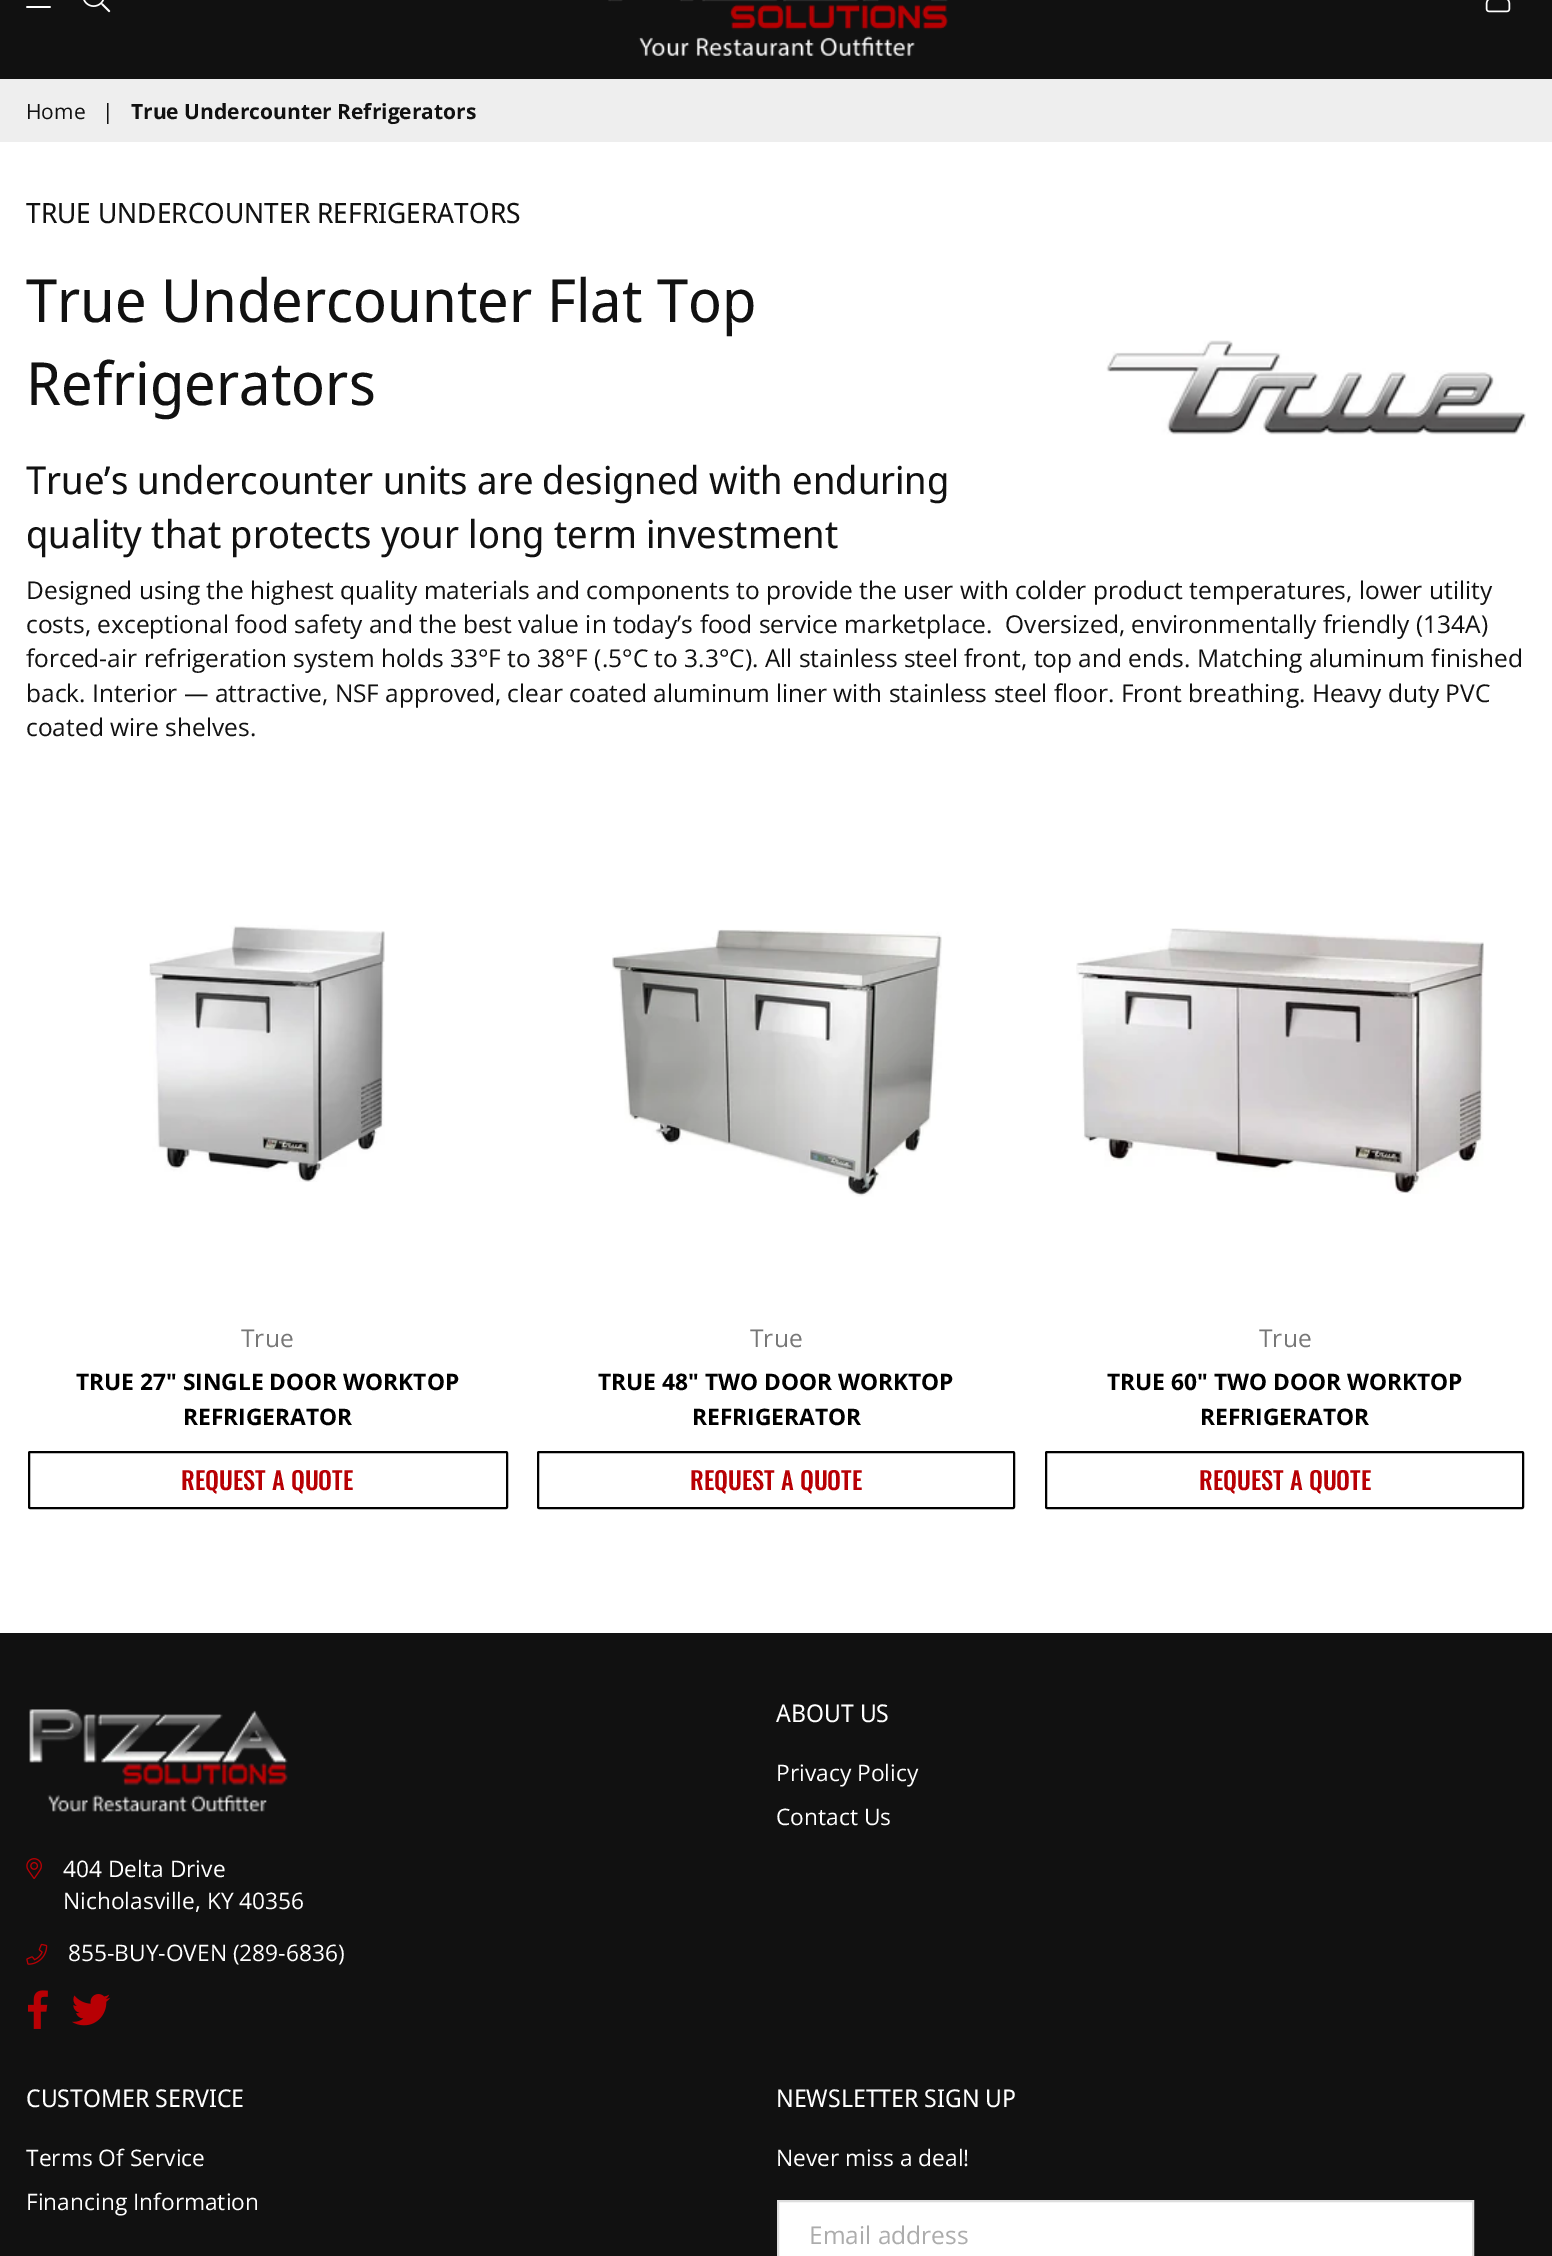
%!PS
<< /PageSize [1552 2256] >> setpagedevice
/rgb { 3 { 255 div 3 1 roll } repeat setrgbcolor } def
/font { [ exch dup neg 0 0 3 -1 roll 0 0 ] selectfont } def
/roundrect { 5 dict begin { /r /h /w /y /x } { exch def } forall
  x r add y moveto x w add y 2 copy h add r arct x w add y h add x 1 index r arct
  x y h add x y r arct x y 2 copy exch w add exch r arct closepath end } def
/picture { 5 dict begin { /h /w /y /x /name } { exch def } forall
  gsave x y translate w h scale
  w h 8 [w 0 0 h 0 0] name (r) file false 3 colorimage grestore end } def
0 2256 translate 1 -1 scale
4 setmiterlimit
255 255 255 rgb
0 0 1552 2256 rectfill
17 17 17 rgb
0 0 1552 79 rectfill
(img/1.rgb) 26 6 25 2 picture
(img/2.rgb) 83 0 28 13 picture
(img/3.rgb) 608 0 340 56 picture
(img/4.rgb) 1485 0 26 13 picture
238 238 238 rgb
0 79 1552 63 rectfill
(img/5.rgb) 1106 340 420 95 picture
(img/6.rgb) 149 925 236 257 picture
0 0 0 rgb
2 setlinewidth
29 1452 478 56 1 roundrect stroke
(img/7.rgb) 612 929 330 268 picture
538 1452 476 56 1 roundrect stroke
(img/8.rgb) 1076 928 408 266 picture
1046 1452 477 56 1 roundrect stroke
17 17 17 rgb
0 1633 1552 623 rectfill
(img/9.rgb) 29 1709 259 103 picture
(img/10.rgb) 26 1858 16 21 picture
(img/11.rgb) 26 1943 22 22 picture
(img/12.rgb) 28 1990 20 39 picture
(img/13.rgb) 72 1994 39 32 picture
255 255 255 rgb
778 2201 moveto 1473 2201 lineto 1473 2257 lineto 778 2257 lineto closepath gsave fill grestore
221 221 221 rgb
stroke
/OpenSans-Regular 21 font
17 17 17 rgb
26 119 moveto (Home) show
102 119 moveto (|) show
/OpenSans-Bold 21 font
131 119 moveto (True Undercounter Refrigerators) show
/NotoSansDisplay-Regular 28 font
26 223 moveto (TRUE UNDERCOUNTER REFRIGERATORS) show
/NotoSansDisplay-Regular 59.5 font
26 322 moveto (True Undercounter Flat Top) show
26 405 moveto (Refrigerators) show
/NotoSansDisplay-Regular 38.5 font
26 494 moveto (True’s undercounter units are designed with enduring) show
26 548 moveto (quality that protects your long term investment) show
/OpenSans-Regular 24.5 font
[
  [(Designed using the highest quality materials and components to provide the user with colder product temperatures, lower utility) 26 599]
  [(costs, exceptional food safety and the best value in today’s food service marketplace.  Oversized, environmentally friendly \(134A\)) 26 633]
  [(forced-air refrigeration system holds 33°F to 38°F \(.5°C to 3.3°C\). All stainless steel front, top and ends. Matching aluminum finished) 26 667]
  [(back. Interior — attractive, NSF approved, clear coated aluminum liner with stainless steel floor. Front breathing. Heavy duty PVC) 26 702]
  [(coated wire shelves.) 26 736]
] { aload pop moveto show } forall
119 119 119 rgb
241 1347 moveto (True) show
/OpenSans-Bold 22.75 font
0 0 0 rgb
76 1390 moveto (TRUE 27" SINGLE DOOR WORKTOP) show
183 1425 moveto (REFRIGERATOR) show
/Oswald-Medium 24.5 font
184 0 4 rgb
181 1490 moveto (REQUEST A QUOTE) show
/OpenSans-Regular 24.5 font
119 119 119 rgb
750 1347 moveto (True) show
/OpenSans-Bold 22.75 font
0 0 0 rgb
598 1390 moveto (TRUE 48" TWO DOOR WORKTOP) show
692 1425 moveto (REFRIGERATOR) show
/Oswald-Medium 24.5 font
184 0 4 rgb
690 1490 moveto (REQUEST A QUOTE) show
/OpenSans-Regular 24.5 font
119 119 119 rgb
1259 1347 moveto (True) show
/OpenSans-Bold 22.75 font
0 0 0 rgb
1107 1390 moveto (TRUE 60" TWO DOOR WORKTOP) show
1200 1425 moveto (REFRIGERATOR) show
/Oswald-Medium 24.5 font
184 0 4 rgb
1199 1490 moveto (REQUEST A QUOTE) show
/NotoSansDisplay-Regular 24.5 font
255 255 255 rgb
776 1722 moveto (ABOUT US) show
/OpenSans-Regular 22.75 font
[
  [(Privacy Policy) 776 1781]
  [(Contact Us) 776 1825]
  [(404 Delta Drive) 63 1877]
  [(Nicholasville, KY 40356) 63 1909]
  [(855-BUY-OVEN \(289-6836\)) 68 1961]
] { aload pop moveto show } forall
/NotoSansDisplay-Regular 24.5 font
26 2107 moveto (CUSTOMER SERVICE) show
/OpenSans-Regular 22.75 font
26 2166 moveto (Terms Of Service) show
26 2210 moveto (Financing Information) show
/NotoSansDisplay-Regular 24.5 font
776 2107 moveto (NEWSLETTER SIGN UP) show
/OpenSans-Regular 22.75 font
776 2166 moveto (Never miss a deal!) show
/OpenSans-Regular 24.5 font
172 172 172 rgb
809 2244 moveto (Email address) show
showpage
